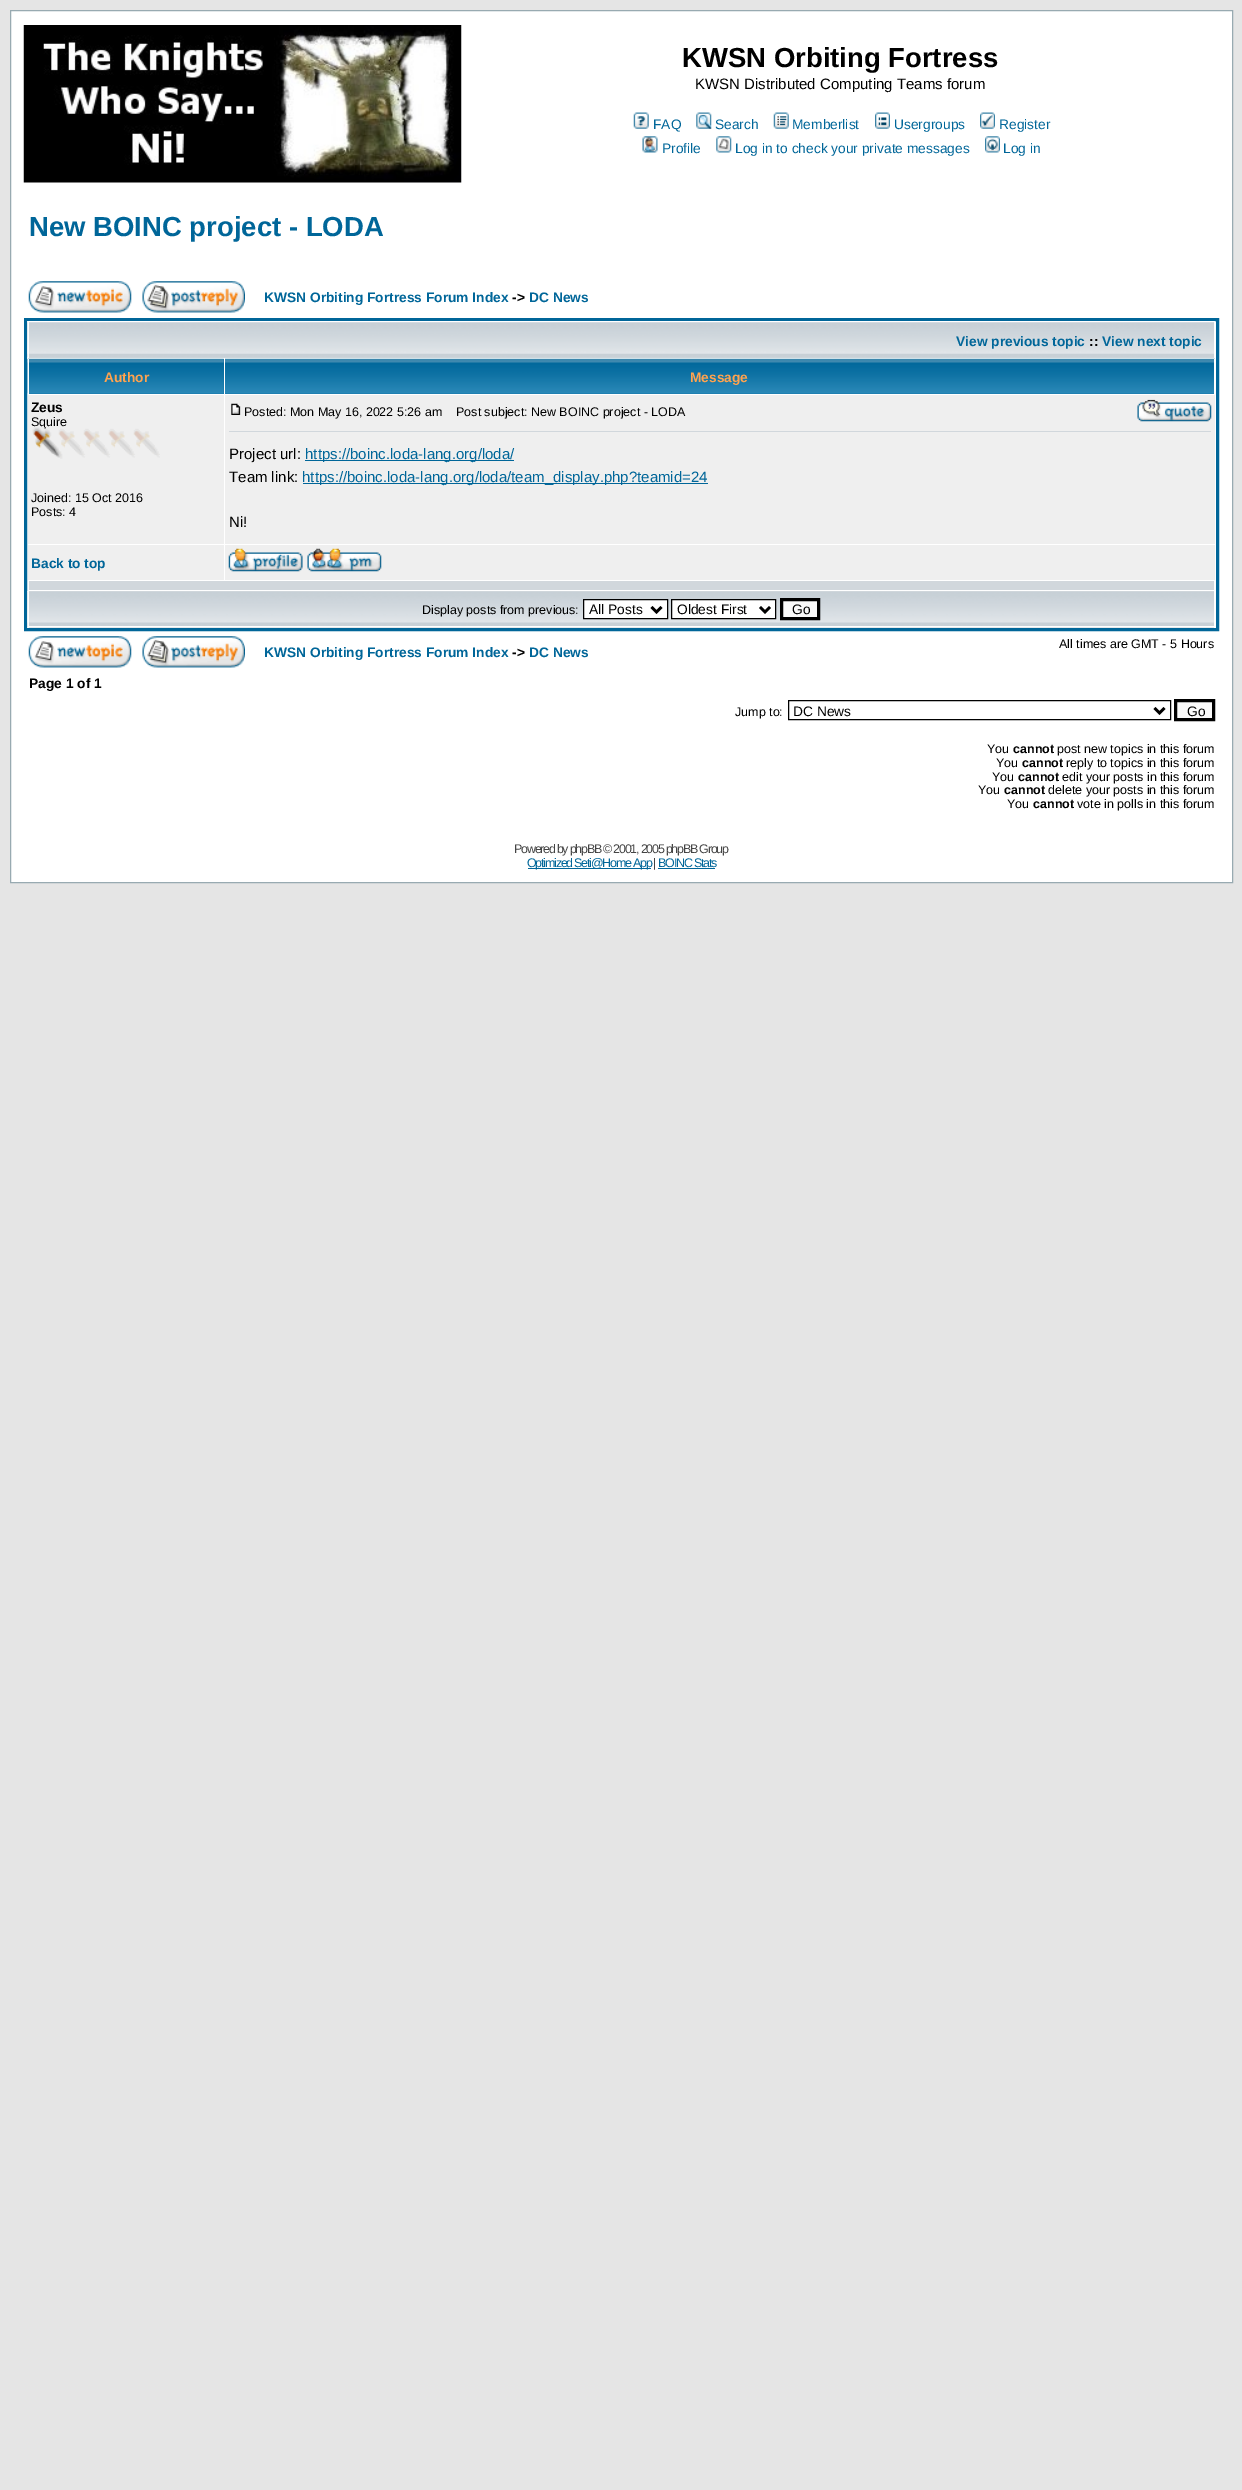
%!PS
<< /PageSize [1242 2490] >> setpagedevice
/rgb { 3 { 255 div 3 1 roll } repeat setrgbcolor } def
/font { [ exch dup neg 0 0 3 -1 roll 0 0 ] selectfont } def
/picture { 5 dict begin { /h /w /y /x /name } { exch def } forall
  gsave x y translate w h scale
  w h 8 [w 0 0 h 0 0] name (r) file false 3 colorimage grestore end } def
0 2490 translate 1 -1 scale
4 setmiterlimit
229 229 229 rgb
0 0 1242 2490 rectfill
255 255 255 rgb
10.5 10.5 moveto 1232.5 10.5 lineto 1232.5 882.5 lineto 10.5 882.5 lineto closepath gsave fill grestore
152 170 177 rgb
stroke
(img/1.rgb) 23 25 439 158 picture
(img/2.rgb) 633 112 16 17 picture
(img/3.rgb) 696 112 16 17 picture
(img/4.rgb) 773 112 16 17 picture
(img/5.rgb) 875 112 15 17 picture
(img/6.rgb) 980 112 15 17 picture
(img/7.rgb) 642 136 16 17 picture
(img/8.rgb) 716 136 16 17 picture
(img/9.rgb) 985 136 15 17 picture
(img/10.rgb) 28 281 104 32 picture
(img/11.rgb) 142 281 103 32 picture
0 102 153 rgb
3 setlinewidth
25.5 319.5 1192 310 rectstroke
209 215 220 rgb
29 357 1185 1 rectfill
(img/12.rgb) 27 321 1187 37 picture
[
  [28 321 1187 1 255 255 255]
  [28 321 1 37 255 255 255]
  [29 359 195 35 0 102 153]
] { aload pop rgb rectfill } forall
(img/13.rgb) 27 358 197 36 picture
255 255 255 rgb
28 359 1 35 rectfill
(img/14.rgb) 225 358 990 36 picture
[
  [1214 359 1 35 255 255 255]
  [28 395 196 149 239 239 239]
  [225 395 990 149 239 239 239]
] { aload pop rgb rectfill } forall
(img/16.rgb) 231 403 10 12 picture
(img/17.rgb) 1137 399 75 23 picture
[
  [229 431 982 1 209 215 220]
  [305 460 209 1 0 102 153]
  [303 483 405 1 0 102 153]
  [28 545 196 35 239 239 239]
  [225 545 990 35 239 239 239]
] { aload pop rgb rectfill } forall
(img/18.rgb) 228 548 75 24 picture
(img/19.rgb) 307 548 75 24 picture
209 215 220 rgb
29 581 1185 9 rectfill
(img/20.rgb) 27 591 1187 37 picture
255 255 255 rgb
28 626 1187 1 rectfill
28 591 1 37 rectfill
583.5 599.5 moveto 667.5 599.5 lineto 667.5 618.5 lineto 583.5 618.5 lineto closepath gsave fill grestore
0 0 0 rgb
1 setlinewidth
stroke
2.5 setlinewidth
651.5 607 moveto 656.5 612 lineto 661.5 607 lineto stroke
255 255 255 rgb
671.5 599.5 moveto 775.5 599.5 lineto 775.5 618.5 lineto 671.5 618.5 lineto closepath gsave fill grestore
0 0 0 rgb
1 setlinewidth
stroke
2.5 setlinewidth
760 607 moveto 765 612 lineto 770 607 lineto stroke
250 250 250 rgb
781.5 599.5 moveto 818.5 599.5 lineto 818.5 618.5 lineto 781.5 618.5 lineto closepath gsave fill grestore
0 0 0 rgb
3 setlinewidth
stroke
(img/21.rgb) 28 636 104 32 picture
(img/22.rgb) 142 636 103 32 picture
1 setlinewidth
788.5 700.5 382 19 rectstroke
2.5 setlinewidth
1154.5 708 moveto 1159.5 713 lineto 1164.5 708 lineto stroke
250 250 250 rgb
1175.5 700.5 moveto 1213.5 700.5 lineto 1213.5 719.5 lineto 1175.5 719.5 lineto closepath gsave fill grestore
0 0 0 rgb
3 setlinewidth
stroke
0 102 153 rgb
528 868 123 1 rectfill
658 868 57 1 rectfill
/LiberationSans-Bold 27.5 font
0 0 0 rgb
682 67 moveto (KWSN Orbiting Fortress) show
/LiberationSans-Regular 15 font
695 89 moveto (KWSN Distributed Computing Teams forum) show
/LiberationSans-Regular 13.75 font
0 102 153 rgb
[
  [(FAQ) 653 129]
  [(Search) 715 129]
  [(Memberlist) 792 129]
  [(Usergroups) 894 129]
  [(Register) 999 129]
  [(Profile) 662 153]
  [(Log in to check your private messages) 735 153]
  [(Log in) 1003 153]
] { aload pop moveto show } forall
/LiberationSans-Bold 27.5 font
29 236 moveto (New BOINC project - LODA) show
/LiberationSans-Bold 13.75 font
264 302 moveto (KWSN Orbiting Fortress Forum Index) show
0 0 0 rgb
512 302 moveto (->) show
0 102 153 rgb
529 302 moveto (DC News) show
956 346 moveto (View previous topic) show
0 0 0 rgb
1089 346 moveto (::) show
0 102 153 rgb
1102 346 moveto (View next topic) show
255 163 79 rgb
104 382 moveto (Author) show
690 382 moveto (Message) show
0 0 0 rgb
31 412 moveto (Zeus) show
/LiberationSans-Regular 12.5 font
31 426 moveto (Squire) show
(img/15.rgb) 32 427 128 32 picture
[
  [(Joined: 15 Oct 2016) 31 502]
  [(Posts: 4) 31 516]
  [(Posted: Mon May 16, 2022 5:26 am) 244 416]
  [(Post subject: New BOINC project - LODA) 456 416]
] { aload pop moveto show } forall
/LiberationSans-Regular 15 font
229 459 moveto (Project url:) show
0 102 153 rgb
305 459 moveto (https://boinc.loda-lang.org/loda/) show
0 0 0 rgb
229 482 moveto (Team link:) show
0 102 153 rgb
302 482 moveto (https://boinc.loda-lang.org/loda/team_display.php?teamid=24) show
0 0 0 rgb
229 527 moveto (Ni!) show
/LiberationSans-Bold 13.75 font
0 102 153 rgb
31 568 moveto (Back to top) show
/LiberationSans-Regular 12.5 font
0 0 0 rgb
422 614 moveto (Display posts from previous:) show
/LiberationSans-Regular 13.75 font
[
  [(All Posts) 589 614]
  [(Oldest First) 677 614]
  [(Go) 792 614]
] { aload pop moveto show } forall
/LiberationSans-Regular 12.5 font
1059 648 moveto (All times are GMT - 5 Hours) show
/LiberationSans-Bold 13.75 font
0 102 153 rgb
264 657 moveto (KWSN Orbiting Fortress Forum Index) show
0 0 0 rgb
512 657 moveto (->) show
0 102 153 rgb
529 657 moveto (DC News) show
0 0 0 rgb
29 688 moveto (Page 1 of 1) show
/LiberationSans-Regular 12.5 font
735 716 moveto (Jump to:) show
/LiberationSans-Regular 13.75 font
793 716 moveto (DC News) show
1187 716 moveto (Go) show
/LiberationSans-Regular 12.5 font
987 753 moveto (You) show
/LiberationSans-Bold 12.5 font
1013 753 moveto (cannot) show
/LiberationSans-Regular 12.5 font
1057 753 moveto (post new topics in this forum) show
996 767 moveto (You) show
/LiberationSans-Bold 12.5 font
1022 767 moveto (cannot) show
/LiberationSans-Regular 12.5 font
1066 767 moveto (reply to topics in this forum) show
992 781 moveto (You) show
/LiberationSans-Bold 12.5 font
1018 781 moveto (cannot) show
/LiberationSans-Regular 12.5 font
1062 781 moveto (edit your posts in this forum) show
978 794 moveto (You) show
/LiberationSans-Bold 12.5 font
1004 794 moveto (cannot) show
/LiberationSans-Regular 12.5 font
1048 794 moveto (delete your posts in this forum) show
1007 808 moveto (You) show
/LiberationSans-Bold 12.5 font
1033 808 moveto (cannot) show
/LiberationSans-Regular 12.5 font
1077 808 moveto (vote in polls in this forum) show
68 68 68 rgb
514 853 moveto -1.25 0 (Powered by phpBB © 2001, 2005 phpBB Group) ashow
0 102 153 rgb
527 867 moveto -1.25 0 (Optimized Seti@Home App) ashow
68 68 68 rgb
653 867 moveto -1.25 0 (|) ashow
0 102 153 rgb
658 867 moveto -1.25 0 (BOINC Stats) ashow
showpage
